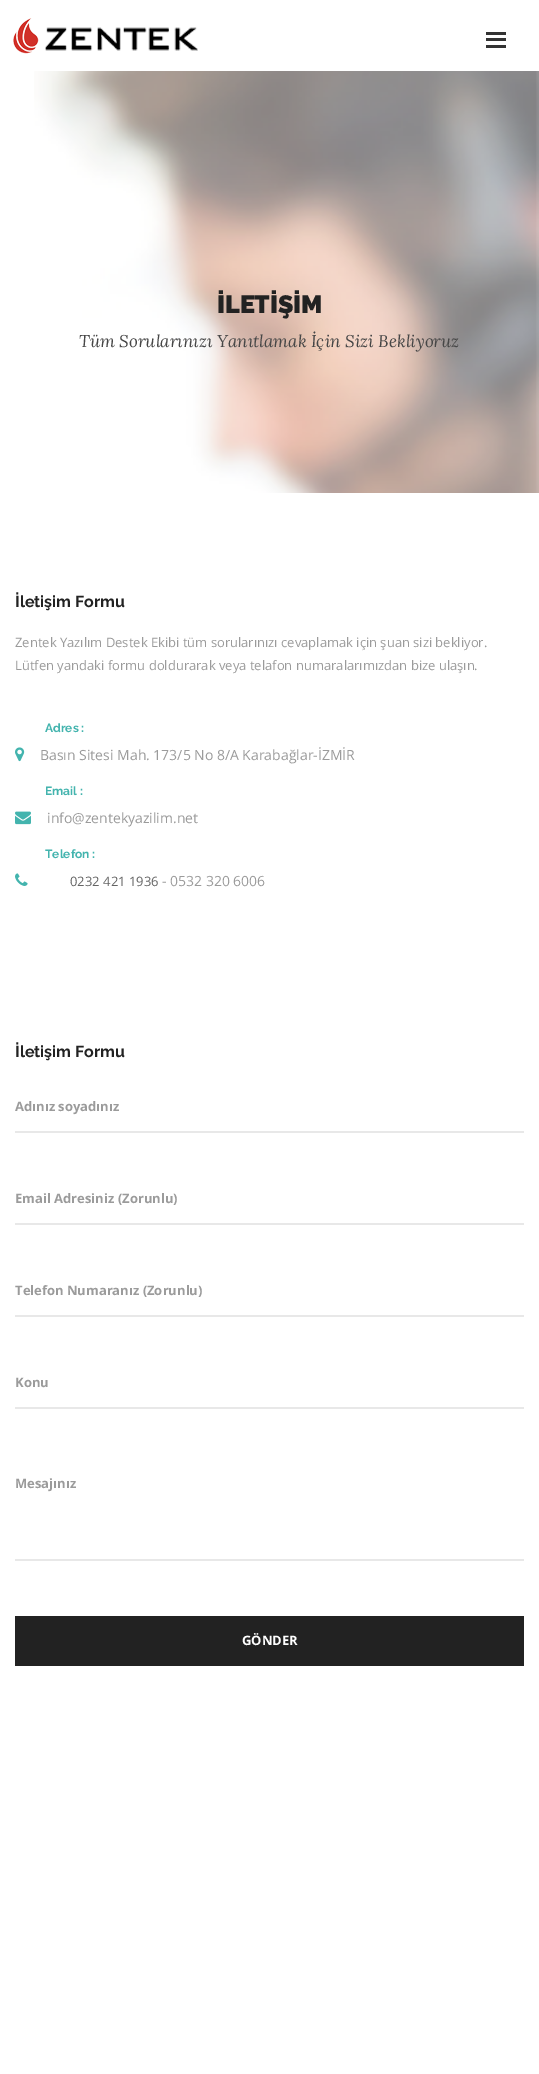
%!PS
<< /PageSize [539 2074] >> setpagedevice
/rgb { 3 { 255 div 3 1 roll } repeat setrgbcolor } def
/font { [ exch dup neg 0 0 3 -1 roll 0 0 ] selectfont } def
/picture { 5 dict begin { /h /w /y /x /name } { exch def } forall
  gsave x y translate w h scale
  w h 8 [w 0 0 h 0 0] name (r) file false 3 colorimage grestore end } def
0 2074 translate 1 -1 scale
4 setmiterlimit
255 255 255 rgb
0 0 539 2074 rectfill
(img/1.rgb) 13 18 185 36 picture
[
  [486 32 20 3 51 51 51]
  [486 38 20 3 51 51 51]
  [486 45 20 3 51 51 51]
] { aload pop rgb rectfill } forall
(img/2.rgb) 34 71 505 422 picture
(img/3.rgb) 15 747 10 15 picture
(img/4.rgb) 15 811 16 14 picture
(img/5.rgb) 15 873 13 13 picture
[
  [15 1131 509 2 232 232 232]
  [15 1223 509 2 232 232 232]
  [15 1315 509 2 232 232 232]
  [15 1407 509 2 232 232 232]
  [15 1559 509 2 232 232 232]
  [15 1616 509 50 34 34 34]
] { aload pop rgb rectfill } forall
/Raleway-Black 25 font
217 313 moveto (İLETİŞİM) show
/Lora-Italic 17 font
71 71 71 rgb
79 347 moveto (Tüm Sorularınızı Yanıtlamak İçin Sizi Bekliyoruz) show
/Raleway-Bold 16 font
34 34 34 rgb
15 607 moveto (İletişim Formu) show
/OpenSans-Regular 13 font
155 155 155 rgb
15 647 moveto (Zentek Yazılım Destek Ekibi tüm sorularınızı cevaplamak için şuan sizi bekliyor.) show
15 670 moveto (Lütfen yandaki formu doldurarak veya telafon numaralarımızdan bize ulaşın.) show
/Raleway-Bold 12 font
67 180 174 rgb
45 732 moveto (Adres :) show
/OpenSans-Regular 14 font
155 155 155 rgb
40 760 moveto (Basın Sitesi Mah. 173/5 No 8/A Karabağlar-İZMİR) show
/Raleway-Bold 12 font
67 180 174 rgb
45 795 moveto (Email :) show
/OpenSans-Regular 14 font
155 155 155 rgb
47 823 moveto (info@zentekyazilim.net) show
/Raleway-Bold 12 font
67 180 174 rgb
45 858 moveto (Telefon :) show
/OpenSans-Regular 13 font
100 100 100 rgb
70 886 moveto (0232 421 1936) show
/OpenSans-Regular 14 font
155 155 155 rgb
162 886 moveto (- 0532 320 6006) show
/Raleway-Bold 16 font
34 34 34 rgb
15 1057 moveto (İletişim Formu) show
/OpenSans-Bold 13 font
155 155 155 rgb
[
  [(Adınız soyadınız) 15 1111]
  [(Email Adresiniz \(Zorunlu\)) 15 1203]
  [(Telefon Numaranız \(Zorunlu\)) 15 1295]
  [(Konu) 15 1387]
  [(Mesajınız) 15 1488]
] { aload pop moveto show } forall
255 255 255 rgb
242 1645 moveto (GÖNDER) show
showpage
